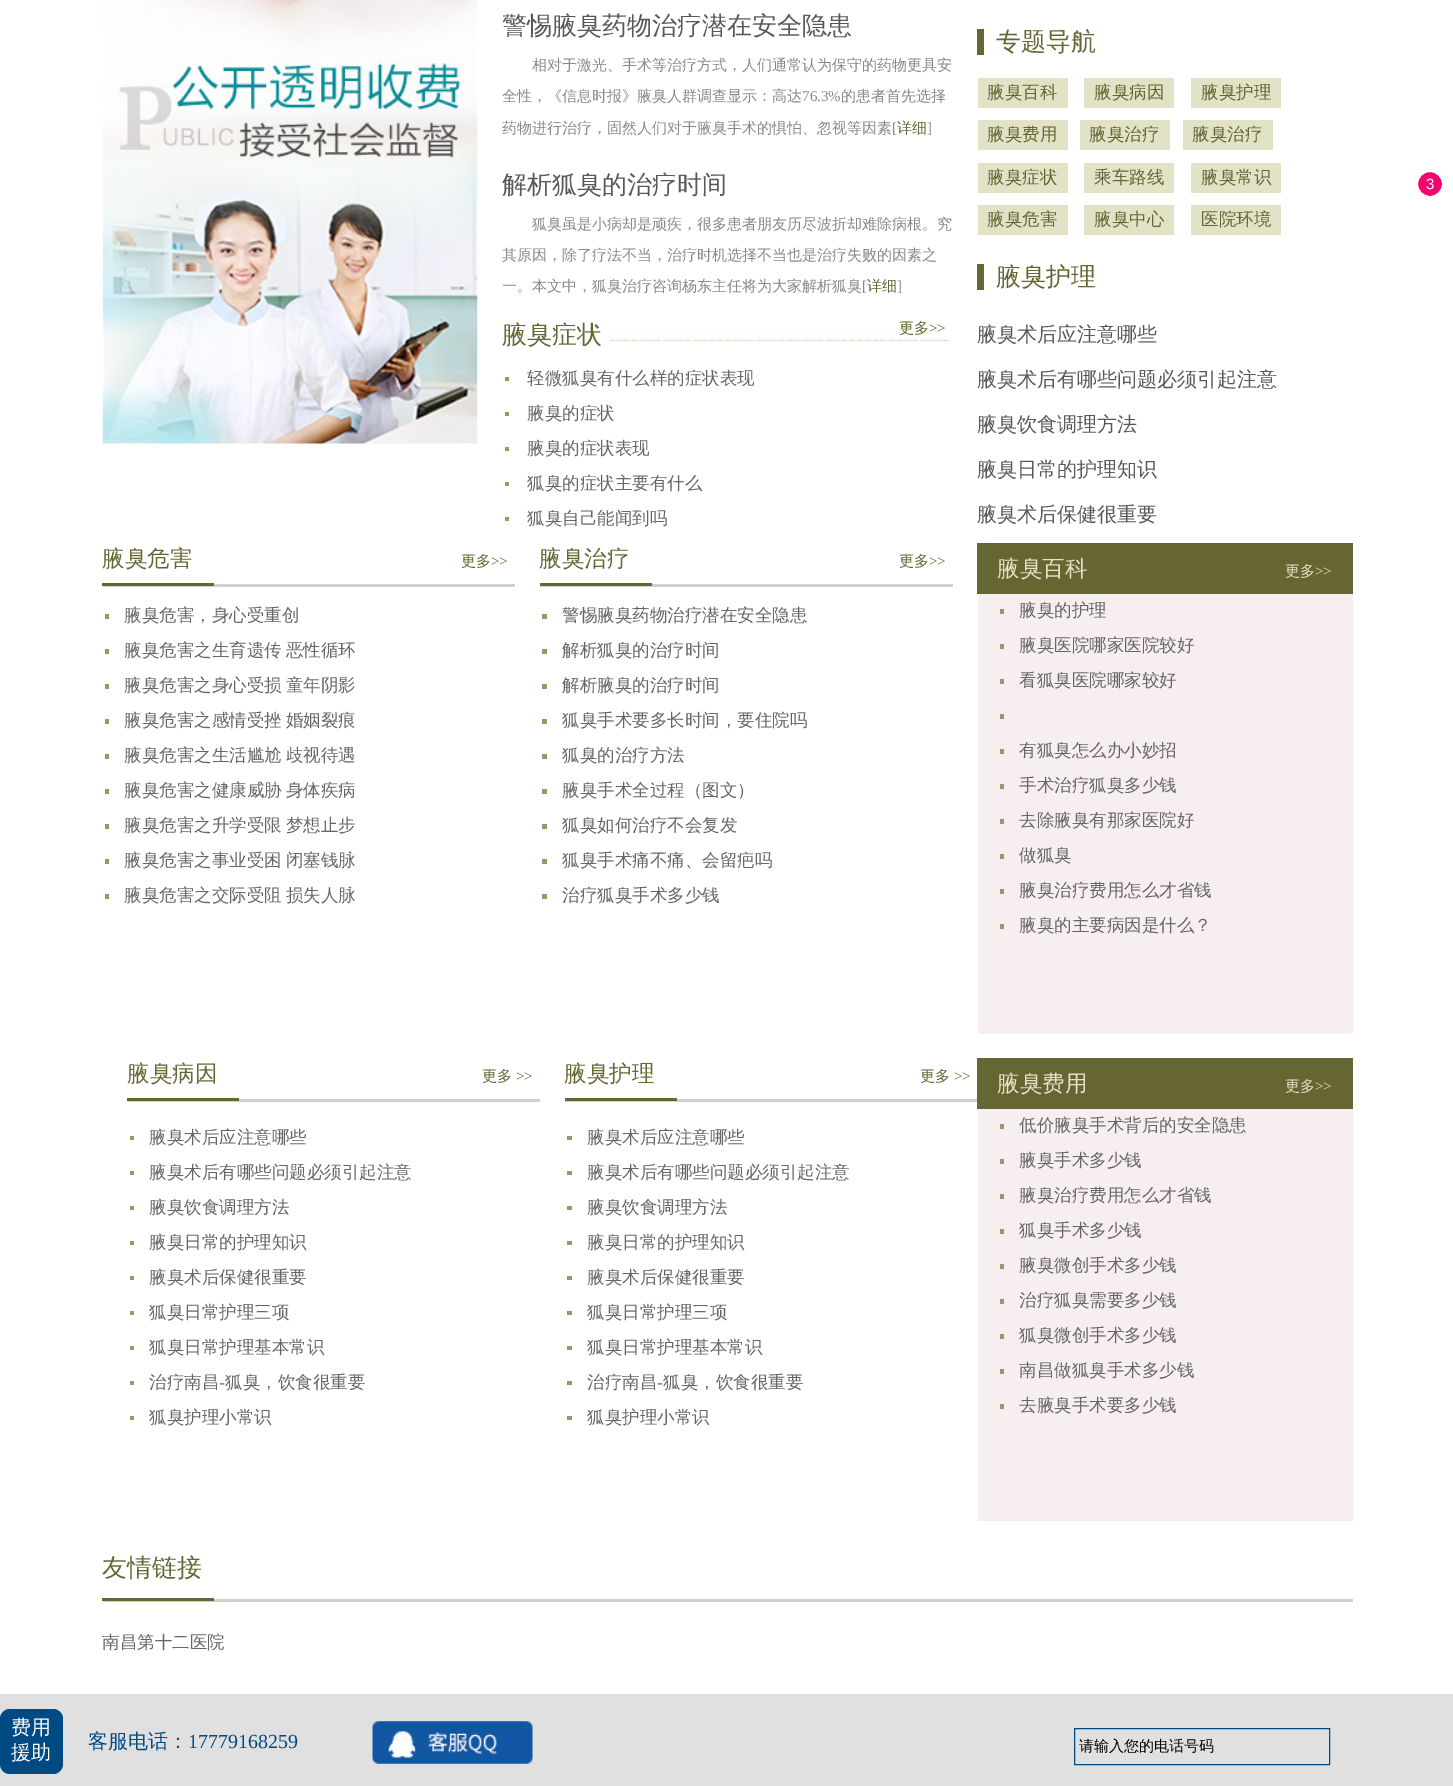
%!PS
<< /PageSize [1453 1786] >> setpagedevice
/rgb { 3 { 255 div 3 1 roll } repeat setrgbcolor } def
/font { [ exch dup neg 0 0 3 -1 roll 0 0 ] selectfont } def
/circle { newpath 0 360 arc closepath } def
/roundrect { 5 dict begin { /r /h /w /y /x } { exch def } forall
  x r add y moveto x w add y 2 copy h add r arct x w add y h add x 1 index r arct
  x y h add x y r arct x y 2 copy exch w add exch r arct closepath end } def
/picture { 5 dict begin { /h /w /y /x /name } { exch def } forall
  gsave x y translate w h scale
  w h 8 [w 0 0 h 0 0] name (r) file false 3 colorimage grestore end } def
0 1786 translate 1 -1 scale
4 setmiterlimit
255 255 255 rgb
0 0 1453 1786 rectfill
(img/1.rgb) 102 0 376 444 picture
(img/2.rgb) 610 333 340 10 picture
[
  [505 377 4 4 153 153 101]
  [505 412 4 4 153 153 101]
  [505 447 4 4 153 153 101]
  [505 482 4 4 153 153 101]
  [505 517 4 4 153 153 101]
  [977 29 7 26 102 102 50]
  [978 78 90 30 226 226 199]
  [1084 78 90 30 226 226 199]
  [1191 78 90 30 226 226 199]
  [978 120 90 30 226 226 199]
  [1080 120 90 30 226 226 199]
  [1183 120 90 30 226 226 199]
  [978 163 90 30 226 226 199]
  [1084 163 90 30 226 226 199]
  [1191 163 90 30 226 226 199]
  [978 205 90 30 226 226 199]
  [1084 205 90 30 226 226 199]
  [1191 205 90 30 226 226 199]
  [977 264 7 26 102 102 50]
  [103 584 412 3 208 208 208]
  [102 583 112 3 102 102 50]
  [105 614 4 5 153 153 101]
  [105 649 4 5 153 153 101]
  [105 684 4 5 153 153 101]
  [105 719 4 5 153 153 101]
  [105 754 4 5 153 153 101]
  [105 789 4 5 153 153 101]
  [105 824 4 5 153 153 101]
  [105 859 4 5 153 153 101]
  [105 894 4 5 153 153 101]
  [540 584 413 3 208 208 208]
  [540 583 112 3 102 102 50]
  [542 614 5 5 153 153 101]
  [542 649 5 5 153 153 101]
  [542 684 5 5 153 153 101]
  [542 719 5 5 153 153 101]
  [542 754 5 5 153 153 101]
  [542 789 5 5 153 153 101]
  [542 824 5 5 153 153 101]
  [542 859 5 5 153 153 101]
  [542 894 5 5 153 153 101]
  [978 594 375 440 247 238 240]
  [977 543 376 51 102 102 50]
  [1000 609 4 5 153 153 101]
  [1000 644 4 5 153 153 101]
  [1000 679 4 5 153 153 101]
  [1000 714 4 5 153 153 101]
  [1000 749 4 5 153 153 101]
  [1000 784 4 5 153 153 101]
  [1000 819 4 5 153 153 101]
  [1000 854 4 5 153 153 101]
  [1000 889 4 5 153 153 101]
  [1000 924 4 5 153 153 101]
  [128 1099 412 3 208 208 208]
  [127 1098 112 3 102 102 50]
  [130 1136 4 4 153 153 101]
  [130 1171 4 4 153 153 101]
  [130 1206 4 4 153 153 101]
  [130 1241 4 4 153 153 101]
  [130 1276 4 4 153 153 101]
  [130 1311 4 4 153 153 101]
  [130 1346 4 4 153 153 101]
  [130 1381 4 4 153 153 101]
  [130 1416 4 4 153 153 101]
  [565 1099 413 3 208 208 208]
  [565 1098 112 3 102 102 50]
  [567 1136 5 4 153 153 101]
  [567 1171 5 4 153 153 101]
  [567 1206 5 4 153 153 101]
  [567 1241 5 4 153 153 101]
  [567 1276 5 4 153 153 101]
  [567 1311 5 4 153 153 101]
  [567 1346 5 4 153 153 101]
  [567 1381 5 4 153 153 101]
  [567 1416 5 4 153 153 101]
  [978 1109 375 412 247 238 240]
  [977 1058 376 51 102 102 50]
  [1000 1124 4 5 153 153 101]
  [1000 1159 4 5 153 153 101]
  [1000 1194 4 5 153 153 101]
  [1000 1229 4 5 153 153 101]
  [1000 1264 4 5 153 153 101]
  [1000 1299 4 5 153 153 101]
  [1000 1334 4 5 153 153 101]
  [1000 1369 4 5 153 153 101]
  [1000 1404 4 5 153 153 101]
  [103 1599 1250 3 208 208 208]
  [102 1598 112 3 102 102 50]
] { aload pop rgb rectfill } forall
247 1 111 rgb
1430 184 13.5 circle gsave fill grestore
255 255 255 rgb
3 setlinewidth
stroke
225 224 225 rgb
0 1694 1453 92 rectfill
0 74 131 rgb
0 1709 63 65 10 roundrect fill
(img/3.rgb) 372 1721 161 43 picture
1 setlinewidth
1074.5 1728.5 255 36 rectstroke
/WenQuanYiZenHei-Medium 25 font
88 88 88 rgb
502 34 moveto (警惕腋臭药物治疗潜在安全隐患) show
/WenQuanYiZenHei-Medium 15 font
136 136 136 rgb
532 70 moveto (相对于激光、手术等治疗方式，人们通常认为保守的药物更具安) show
502 101 moveto (全性，《信息时报》腋臭人群调查显示：高达) show
/LiberationSerif-Regular 15 font
802 101 moveto (76.3%) show
/WenQuanYiZenHei-Medium 15 font
841 101 moveto (的患者首先选择) show
502 133 moveto (药物进行治疗，固然人们对于腋臭手术的惧怕、忽视等因素) show
/LiberationSerif-Regular 15 font
892 133 moveto ([) show
/WenQuanYiZenHei-Medium 15 font
102 102 51 rgb
897 133 moveto (详细) show
/LiberationSerif-Regular 15 font
136 136 136 rgb
927 133 moveto (]) show
/WenQuanYiZenHei-Medium 25 font
88 88 88 rgb
502 193 moveto (解析狐臭的治疗时间) show
/WenQuanYiZenHei-Medium 15 font
136 136 136 rgb
[
  [(狐臭虽是小病却是顽疾，很多患者朋友历尽波折却难除病根。究) 532 229]
  [(其原因，除了疗法不当，治疗时机选择不当也是治疗失败的因素之) 502 260]
  [(一。本文中，狐臭治疗咨询杨东主任将为大家解析狐臭) 502 291]
] { aload pop moveto show } forall
/LiberationSerif-Regular 15 font
862 291 moveto ([) show
/WenQuanYiZenHei-Medium 15 font
102 102 51 rgb
867 291 moveto (详细) show
/LiberationSerif-Regular 15 font
136 136 136 rgb
897 291 moveto (]) show
/WenQuanYiZenHei-Medium 25 font
102 102 51 rgb
502 343 moveto (腋臭症状) show
/WenQuanYiZenHei-Medium 15 font
899 333 moveto (更多) show
/LiberationSerif-Regular 15 font
929 333 moveto (>>) show
/WenQuanYiZenHei-Medium 17.5 font
102 102 102 rgb
[
  [(轻微狐臭有什么样的症状表现) 527 384]
  [(腋臭的症状) 527 419]
  [(腋臭的症状表现) 527 454]
  [(狐臭的症状主要有什么) 527 489]
  [(狐臭自己能闻到吗) 527 524]
] { aload pop moveto show } forall
/WenQuanYiZenHei-Medium 25 font
102 102 51 rgb
996 50 moveto (专题导航) show
/WenQuanYiZenHei-Medium 17.5 font
[
  [(腋臭百科) 987 98]
  [(腋臭病因) 1094 98]
  [(腋臭护理) 1201 98]
  [(腋臭费用) 987 140]
  [(腋臭治疗) 1089 140]
  [(腋臭治疗) 1192 140]
  [(腋臭症状) 987 183]
  [(乘车路线) 1094 183]
  [(腋臭常识) 1201 183]
  [(腋臭危害) 987 225]
  [(腋臭中心) 1094 225]
  [(医院环境) 1201 225]
] { aload pop moveto show } forall
/WenQuanYiZenHei-Medium 25 font
996 285 moveto (腋臭护理) show
/WenQuanYiZenHei-Medium 20 font
88 88 88 rgb
[
  [(腋臭术后应注意哪些) 977 341]
  [(腋臭术后有哪些问题必须引起注意) 977 386]
  [(腋臭饮食调理方法) 977 431]
  [(腋臭日常的护理知识) 977 476]
  [(腋臭术后保健很重要) 977 521]
] { aload pop moveto show } forall
/WenQuanYiZenHei-Medium 22.5 font
102 102 51 rgb
102 566 moveto (腋臭危害) show
/WenQuanYiZenHei-Medium 15 font
461 566 moveto (更多) show
/LiberationSerif-Regular 15 font
491 566 moveto (>>) show
/WenQuanYiZenHei-Medium 17.5 font
102 102 102 rgb
124 621 moveto (腋臭危害，身心受重创) show
124 656 moveto -1 0 32 (腋臭危害之生育遗传 恶性循环) widthshow
124 691 moveto -1 0 32 (腋臭危害之身心受损 童年阴影) widthshow
124 726 moveto -1 0 32 (腋臭危害之感情受挫 婚姻裂痕) widthshow
124 761 moveto -1 0 32 (腋臭危害之生活尴尬 歧视待遇) widthshow
124 796 moveto -1 0 32 (腋臭危害之健康威胁 身体疾病) widthshow
124 831 moveto -1 0 32 (腋臭危害之升学受限 梦想止步) widthshow
124 866 moveto -1 0 32 (腋臭危害之事业受困 闭塞钱脉) widthshow
124 901 moveto -1 0 32 (腋臭危害之交际受阻 损失人脉) widthshow
/WenQuanYiZenHei-Medium 22.5 font
102 102 51 rgb
539 566 moveto (腋臭治疗) show
/WenQuanYiZenHei-Medium 15 font
899 566 moveto (更多) show
/LiberationSerif-Regular 15 font
929 566 moveto (>>) show
/WenQuanYiZenHei-Medium 17.5 font
102 102 102 rgb
[
  [(警惕腋臭药物治疗潜在安全隐患) 562 621]
  [(解析狐臭的治疗时间) 562 656]
  [(解析腋臭的治疗时间) 562 691]
  [(狐臭手术要多长时间，要住院吗) 562 726]
  [(狐臭的治疗方法) 562 761]
  [(腋臭手术全过程（图文）) 562 796]
  [(狐臭如何治疗不会复发) 562 831]
  [(狐臭手术痛不痛、会留疤吗) 562 866]
  [(治疗狐臭手术多少钱) 562 901]
] { aload pop moveto show } forall
/WenQuanYiZenHei-Medium 22.5 font
226 226 199 rgb
997 576 moveto (腋臭百科) show
/WenQuanYiZenHei-Medium 15 font
1285 576 moveto (更多) show
/LiberationSerif-Regular 15 font
1315 576 moveto (>>) show
/WenQuanYiZenHei-Medium 17.5 font
102 102 102 rgb
[
  [(腋臭的护理) 1019 616]
  [(腋臭医院哪家医院较好) 1019 651]
  [(看狐臭医院哪家较好) 1019 686]
  [(有狐臭怎么办小妙招) 1019 756]
  [(手术治疗狐臭多少钱) 1019 791]
  [(去除腋臭有那家医院好) 1019 826]
  [(做狐臭) 1019 861]
  [(腋臭治疗费用怎么才省钱) 1019 896]
  [(腋臭的主要病因是什么？) 1019 931]
] { aload pop moveto show } forall
/WenQuanYiZenHei-Medium 22.5 font
102 102 51 rgb
127 1081 moveto (腋臭病因) show
/WenQuanYiZenHei-Medium 15 font
482 1081 moveto (更多) show
/LiberationSerif-Regular 15 font
516 1081 moveto (>>) show
/WenQuanYiZenHei-Medium 17.5 font
102 102 102 rgb
[
  [(腋臭术后应注意哪些) 149 1143]
  [(腋臭术后有哪些问题必须引起注意) 149 1178]
  [(腋臭饮食调理方法) 149 1213]
  [(腋臭日常的护理知识) 149 1248]
  [(腋臭术后保健很重要) 149 1283]
  [(狐臭日常护理三项) 149 1318]
  [(狐臭日常护理基本常识) 149 1353]
  [(治疗南昌) 149 1388]
] { aload pop moveto show } forall
/LiberationSerif-Regular 17.5 font
219 1388 moveto (-) show
/WenQuanYiZenHei-Medium 17.5 font
225 1388 moveto (狐臭，饮食很重要) show
149 1423 moveto (狐臭护理小常识) show
/WenQuanYiZenHei-Medium 22.5 font
102 102 51 rgb
564 1081 moveto (腋臭护理) show
/WenQuanYiZenHei-Medium 15 font
920 1081 moveto (更多) show
/LiberationSerif-Regular 15 font
954 1081 moveto (>>) show
/WenQuanYiZenHei-Medium 17.5 font
102 102 102 rgb
[
  [(腋臭术后应注意哪些) 587 1143]
  [(腋臭术后有哪些问题必须引起注意) 587 1178]
  [(腋臭饮食调理方法) 587 1213]
  [(腋臭日常的护理知识) 587 1248]
  [(腋臭术后保健很重要) 587 1283]
  [(狐臭日常护理三项) 587 1318]
  [(狐臭日常护理基本常识) 587 1353]
  [(治疗南昌) 587 1388]
] { aload pop moveto show } forall
/LiberationSerif-Regular 17.5 font
657 1388 moveto (-) show
/WenQuanYiZenHei-Medium 17.5 font
663 1388 moveto (狐臭，饮食很重要) show
587 1423 moveto (狐臭护理小常识) show
/WenQuanYiZenHei-Medium 22.5 font
226 226 199 rgb
997 1091 moveto (腋臭费用) show
/WenQuanYiZenHei-Medium 15 font
1285 1091 moveto (更多) show
/LiberationSerif-Regular 15 font
1315 1091 moveto (>>) show
/WenQuanYiZenHei-Medium 17.5 font
102 102 102 rgb
[
  [(低价腋臭手术背后的安全隐患) 1019 1131]
  [(腋臭手术多少钱) 1019 1166]
  [(腋臭治疗费用怎么才省钱) 1019 1201]
  [(狐臭手术多少钱) 1019 1236]
  [(腋臭微创手术多少钱) 1019 1271]
  [(治疗狐臭需要多少钱) 1019 1306]
  [(狐臭微创手术多少钱) 1019 1341]
  [(南昌做狐臭手术多少钱) 1019 1376]
  [(去腋臭手术要多少钱) 1019 1411]
] { aload pop moveto show } forall
/WenQuanYiZenHei-Medium 25 font
102 102 51 rgb
102 1576 moveto (友情链接) show
/WenQuanYiZenHei-Medium 17.5 font
102 102 102 rgb
102 1648 moveto (南昌第十二医院) show
/LiberationSans-Regular 15 font
255 255 255 rgb
1426 189 moveto (3) show
/WenQuanYiZenHei-Medium 20 font
11 1734 moveto (费用) show
11 1759 moveto (援助) show
0 74 131 rgb
88 1748 moveto (客服电话：) show
/LiberationSerif-Regular 20 font
188 1748 moveto (17779168259) show
/WenQuanYiZenHei-Medium 15 font
0 0 0 rgb
1079 1751 moveto (请输入您的电话号码) show
showpage
